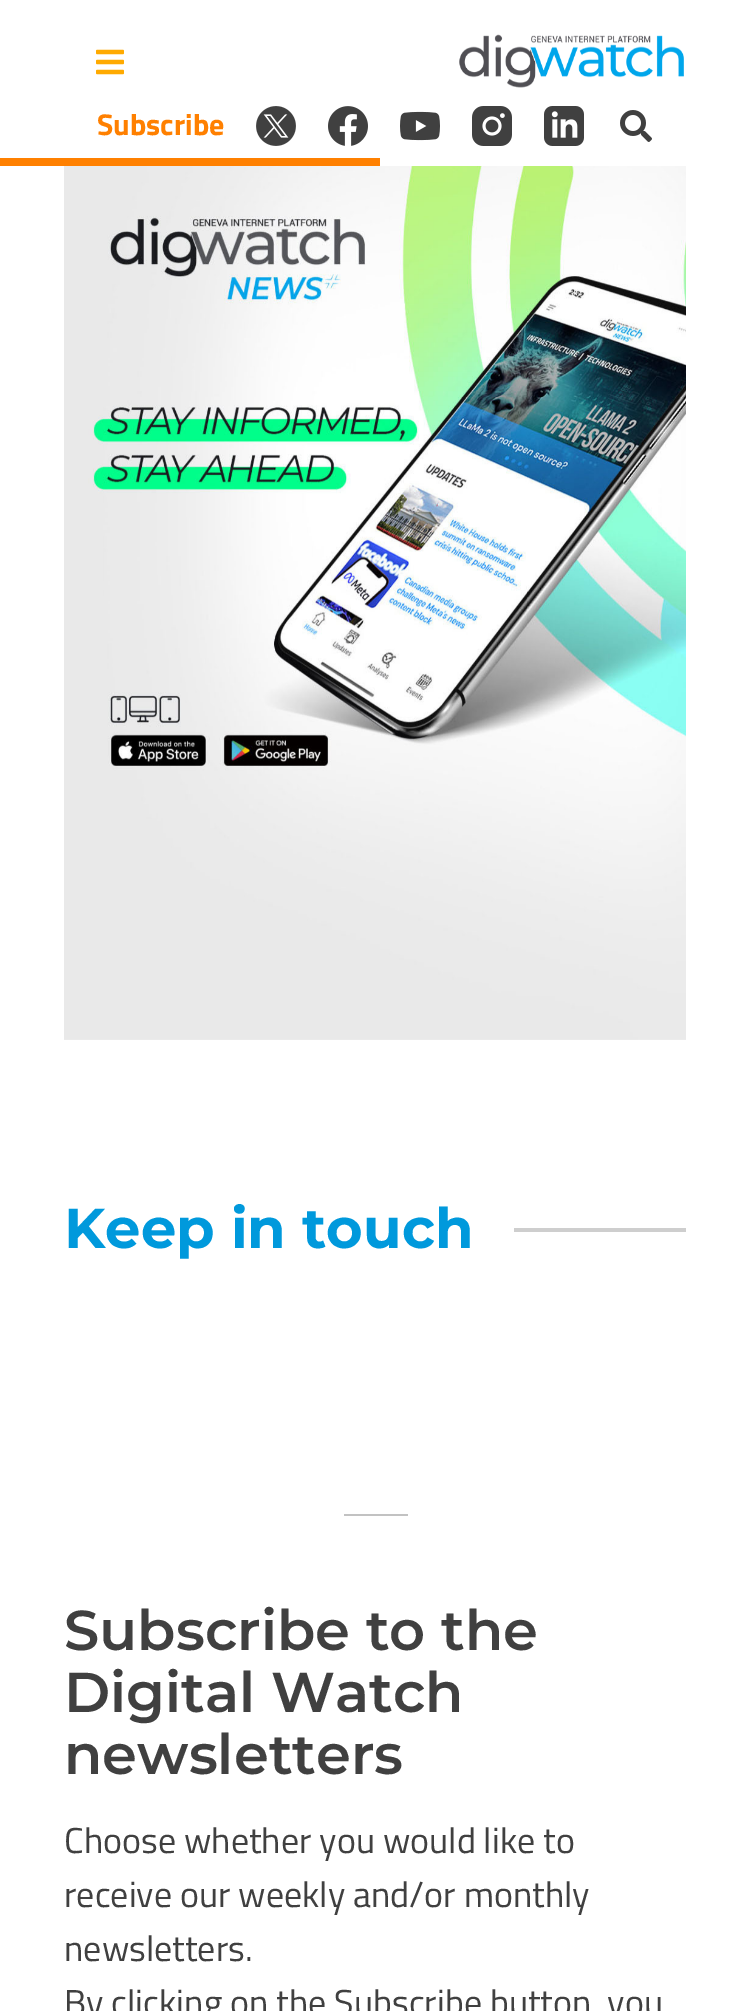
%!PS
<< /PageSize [750 2011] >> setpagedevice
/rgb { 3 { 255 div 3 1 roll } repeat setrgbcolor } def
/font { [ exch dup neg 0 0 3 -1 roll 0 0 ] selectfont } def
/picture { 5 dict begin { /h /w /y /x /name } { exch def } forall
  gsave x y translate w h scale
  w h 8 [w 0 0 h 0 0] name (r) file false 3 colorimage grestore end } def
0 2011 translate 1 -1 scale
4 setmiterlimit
255 255 255 rgb
0 0 750 2011 rectfill
(img/1.rgb) 96 49 28 26 picture
(img/2.rgb) 459 34 225 54 picture
(img/3.rgb) 256 106 40 40 picture
(img/4.rgb) 328 106 40 40 picture
(img/5.rgb) 400 111 40 30 picture
(img/6.rgb) 472 106 40 40 picture
(img/7.rgb) 544 106 40 40 picture
(img/8.rgb) 620 110 32 32 picture
255 128 0 rgb
0 158 380 8 rectfill
(img/9.rgb) 64 166 622 874 picture
206 206 206 rgb
514 1228 172 4 rectfill
194 194 194 rgb
344 1514 64 2 rectfill
/TitilliumWeb-Bold 30 font
255 128 0 rgb
97 135 moveto (Subscribe) show
/Montserrat-Bold 56 font
0 153 220 rgb
64 1248 moveto (Keep in touch) show
/Montserrat-SemiBold 56 font
64 64 64 rgb
[
  [(Subscribe to the) 64 1650]
  [(Digital Watch) 64 1712]
  [(newsletters) 64 1774]
] { aload pop moveto show } forall
/TitilliumWeb-Regular 36 font
[
  [(Choose whether you would like to) 64 1853]
  [(receive our weekly and/or monthly) 64 1907]
  [(newsletters.) 64 1961]
  [(By clicking on the Subscribe button, you) 64 2015]
] { aload pop moveto show } forall
showpage
